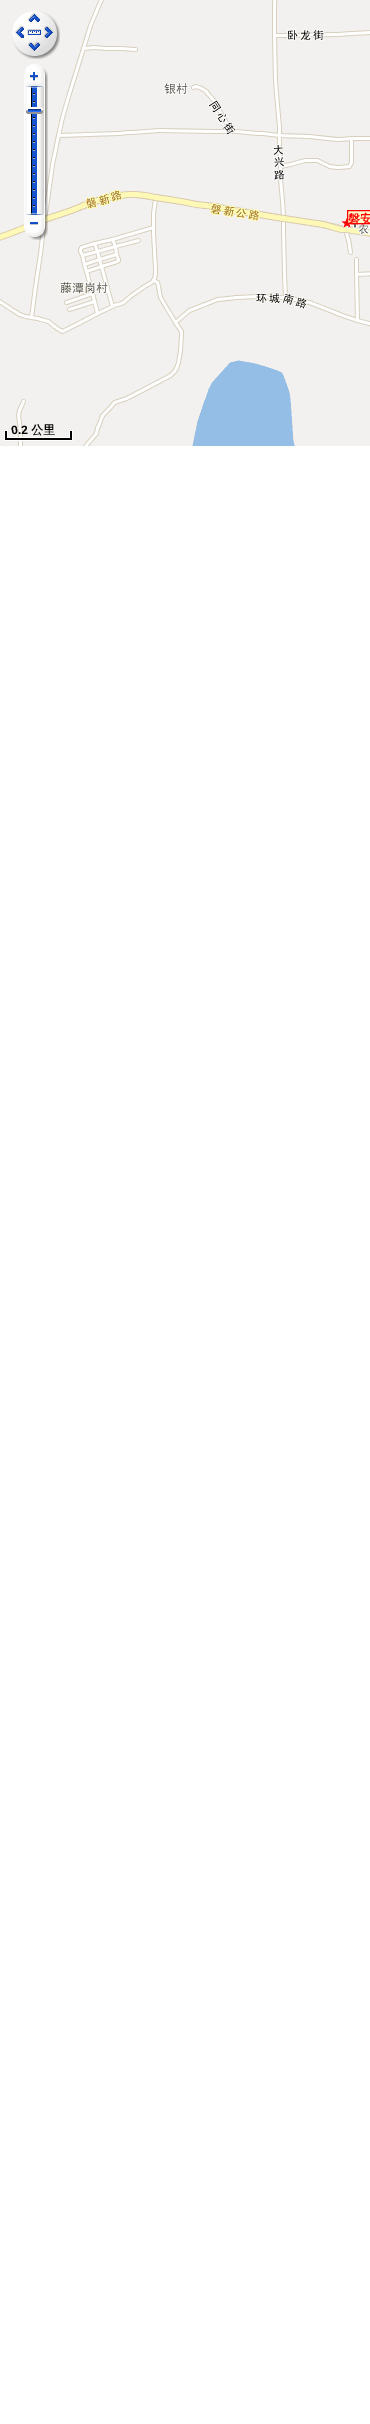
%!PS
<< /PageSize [370 2424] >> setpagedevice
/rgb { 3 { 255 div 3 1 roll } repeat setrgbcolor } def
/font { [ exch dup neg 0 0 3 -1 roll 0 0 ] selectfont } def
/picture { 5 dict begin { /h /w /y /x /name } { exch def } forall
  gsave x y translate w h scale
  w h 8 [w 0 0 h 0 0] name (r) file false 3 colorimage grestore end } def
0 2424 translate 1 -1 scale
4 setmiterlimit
255 255 255 rgb
0 0 370 2424 rectfill
(img/6.rgb) 0 0 37 243 picture
(img/7.rgb) 37 0 300 243 picture
(img/1.rgb) 12 11 48 48 picture
(img/2.rgb) 24 64 24 24 picture
(img/3.rgb) 24 88 24 125 picture
(img/4.rgb) 26 107 17 7 picture
(img/5.rgb) 24 213 24 27 picture
(img/8.rgb) 337 0 33 243 picture
(img/9.rgb) 0 243 37 203 picture
(img/10.rgb) 37 243 300 203 picture
(img/11.rgb) 337 243 33 203 picture
(img/12.rgb) 341 218 10 10 picture
255 255 204 rgb
347.5 210.5 moveto 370.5 210.5 lineto 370.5 223.5 lineto 347.5 223.5 lineto closepath gsave fill grestore
255 0 0 rgb
stroke
/WenQuanYiZenHei-Bold 12 font
348 223 moveto (磐安) show
/LiberationSans-Bold 12 font
0 0 0 rgb
11 434 moveto (0.2) show
/WenQuanYiZenHei-Bold 12 font
31 434 moveto (公里) show
(img/13.rgb) 4 430 69 11 picture
showpage
